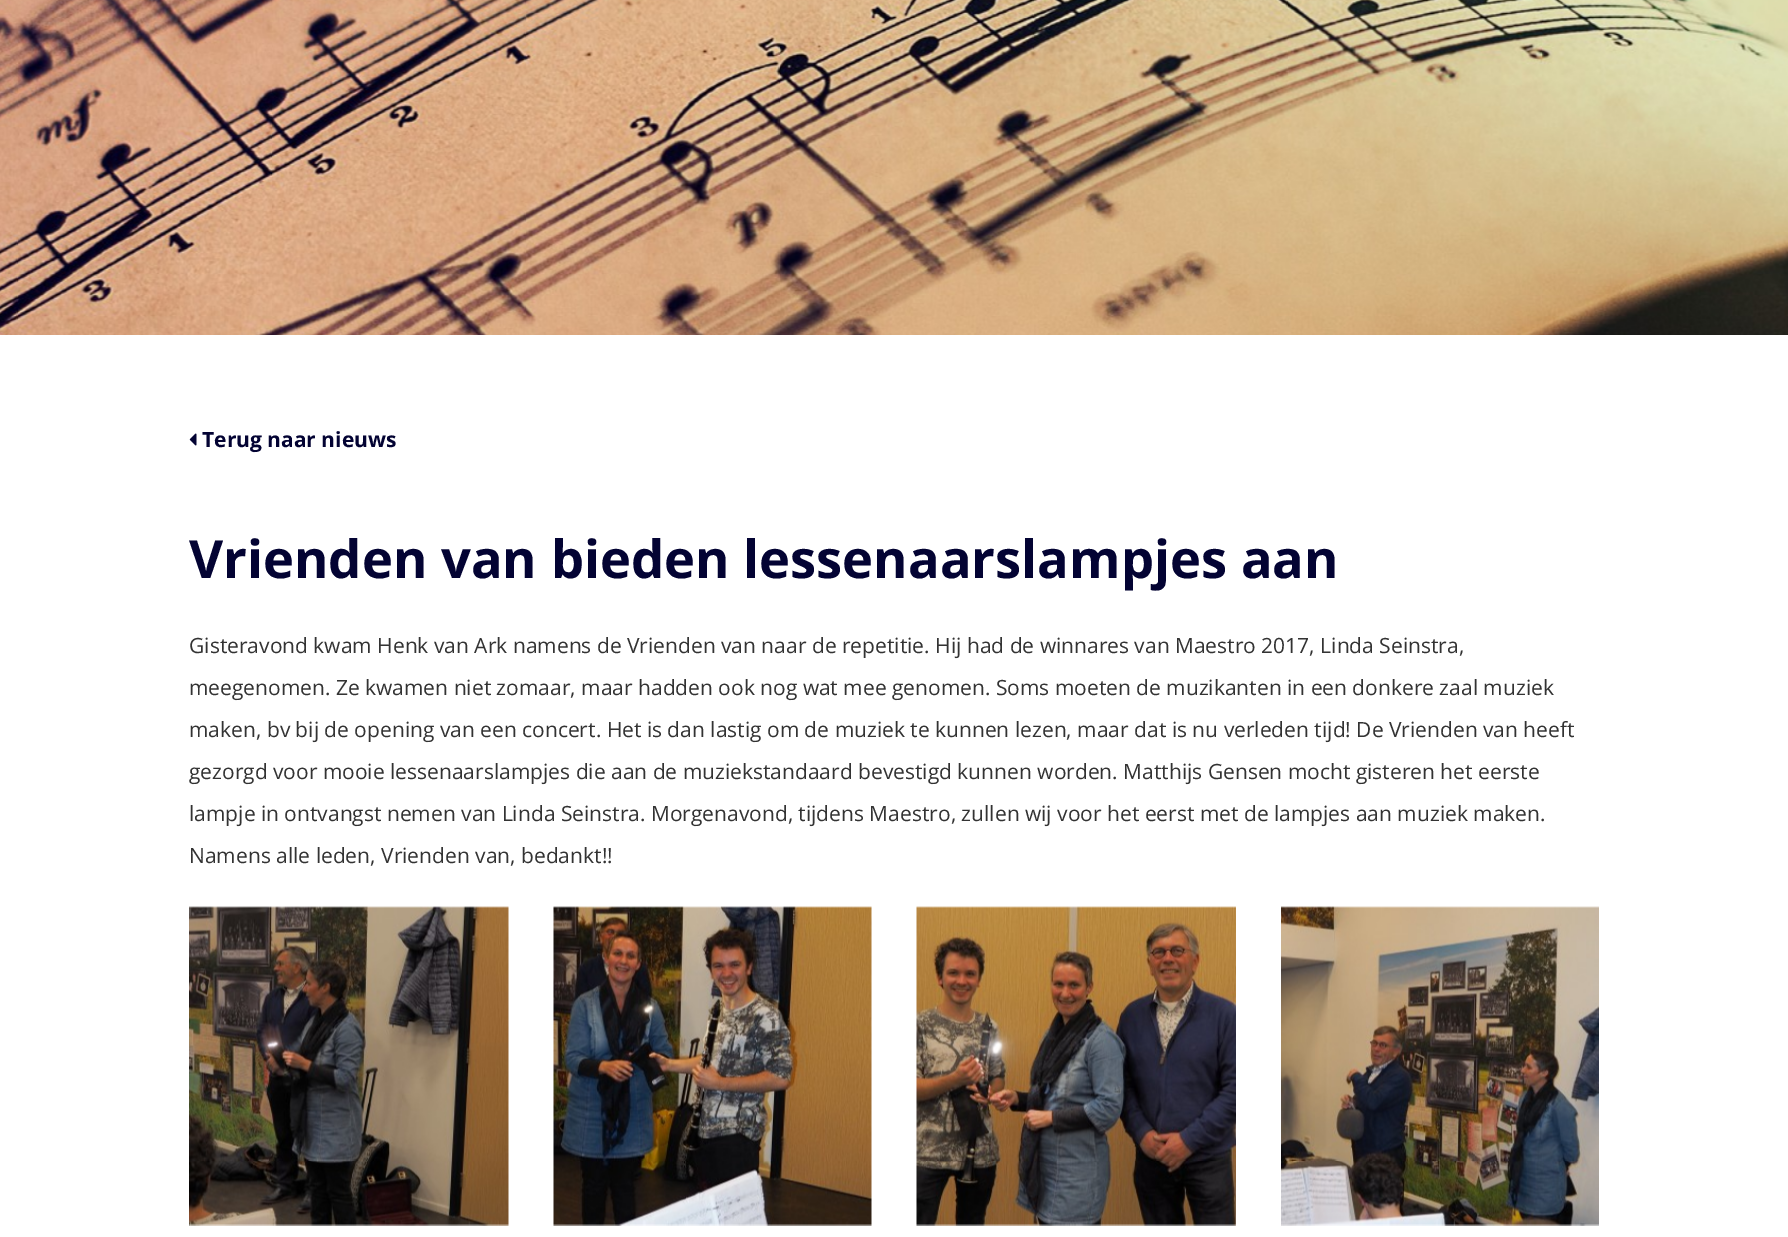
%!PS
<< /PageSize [1788 1237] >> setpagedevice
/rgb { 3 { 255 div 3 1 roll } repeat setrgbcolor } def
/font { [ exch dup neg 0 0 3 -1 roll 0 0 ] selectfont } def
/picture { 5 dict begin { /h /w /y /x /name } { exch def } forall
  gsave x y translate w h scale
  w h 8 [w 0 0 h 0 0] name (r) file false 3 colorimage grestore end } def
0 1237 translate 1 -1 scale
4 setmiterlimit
255 255 255 rgb
0 0 1788 1237 rectfill
(img/1.rgb) 0 0 1788 335 picture
(img/2.rgb) 189 433 8 13 picture
(img/3.rgb) 189 906 320 320 picture
(img/4.rgb) 553 906 319 320 picture
(img/5.rgb) 916 906 320 320 picture
(img/6.rgb) 1281 906 318 320 picture
/OpenSans-Bold 21 font
3 3 51 rgb
202 447 moveto (Terug naar nieuws) show
/OpenSans-Bold 52.5 font
189 578 moveto (Vrienden van bieden lessenaarslampjes aan) show
/OpenSans-Regular 21 font
51 51 51 rgb
[
  [(Gisteravond kwam Henk van Ark namens de Vrienden van naar de repetitie. Hij had de winnares van Maestro 2017, Linda Seinstra,) 189 653]
  [(meegenomen. Ze kwamen niet zomaar, maar hadden ook nog wat mee genomen. Soms moeten de muzikanten in een donkere zaal muziek) 189 695]
  [(maken, bv bij de opening van een concert. Het is dan lastig om de muziek te kunnen lezen, maar dat is nu verleden tijd! De Vrienden van heeft) 189 737]
  [(gezorgd voor mooie lessenaarslampjes die aan de muziekstandaard bevestigd kunnen worden. Matthijs Gensen mocht gisteren het eerste) 189 779]
  [(lampje in ontvangst nemen van Linda Seinstra. Morgenavond, tijdens Maestro, zullen wij voor het eerst met de lampjes aan muziek maken.) 189 821]
  [(Namens alle leden, Vrienden van, bedankt!!) 189 863]
] { aload pop moveto show } forall
showpage
